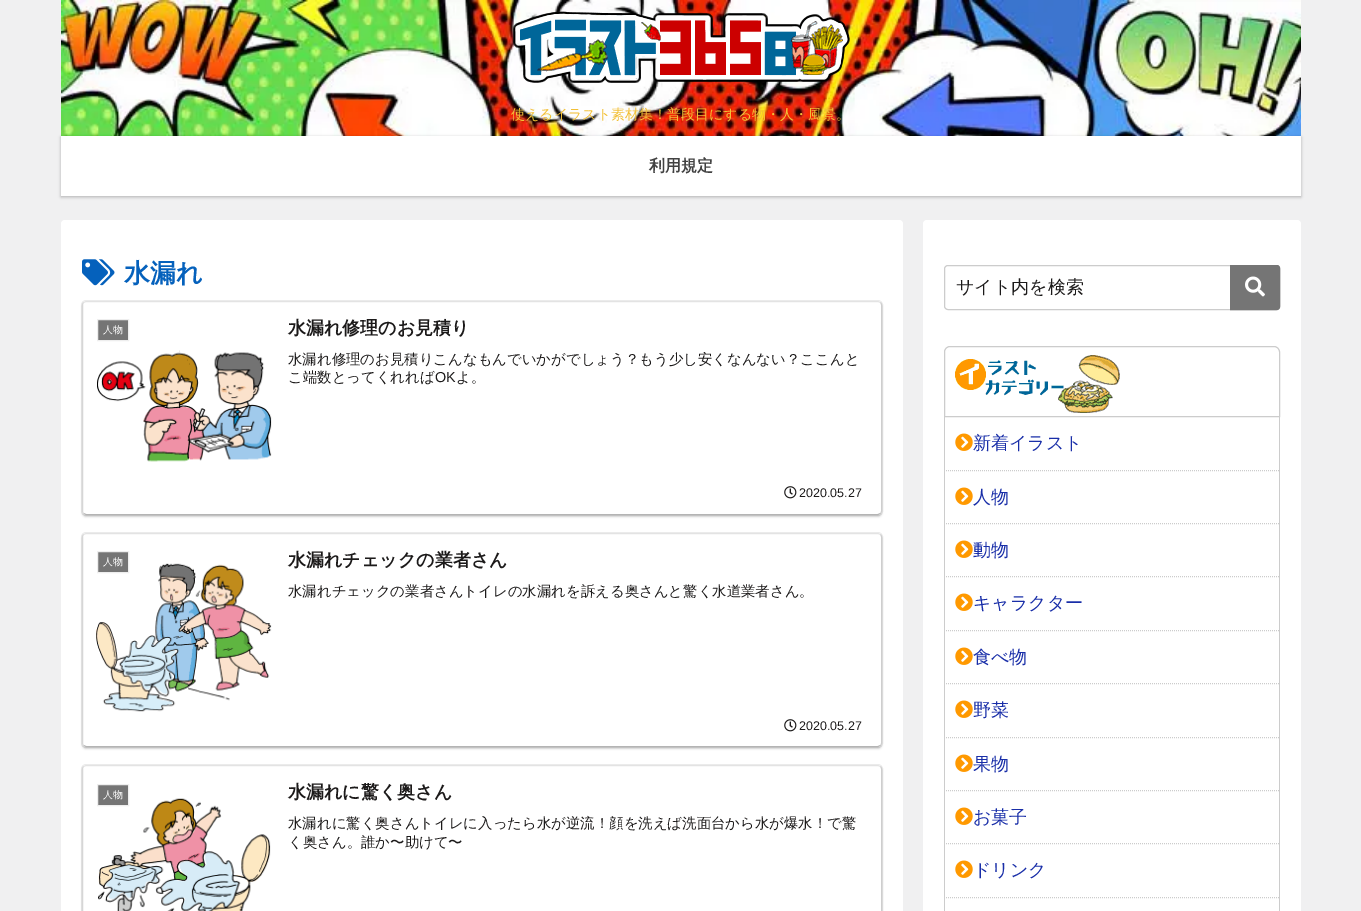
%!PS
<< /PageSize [1361 911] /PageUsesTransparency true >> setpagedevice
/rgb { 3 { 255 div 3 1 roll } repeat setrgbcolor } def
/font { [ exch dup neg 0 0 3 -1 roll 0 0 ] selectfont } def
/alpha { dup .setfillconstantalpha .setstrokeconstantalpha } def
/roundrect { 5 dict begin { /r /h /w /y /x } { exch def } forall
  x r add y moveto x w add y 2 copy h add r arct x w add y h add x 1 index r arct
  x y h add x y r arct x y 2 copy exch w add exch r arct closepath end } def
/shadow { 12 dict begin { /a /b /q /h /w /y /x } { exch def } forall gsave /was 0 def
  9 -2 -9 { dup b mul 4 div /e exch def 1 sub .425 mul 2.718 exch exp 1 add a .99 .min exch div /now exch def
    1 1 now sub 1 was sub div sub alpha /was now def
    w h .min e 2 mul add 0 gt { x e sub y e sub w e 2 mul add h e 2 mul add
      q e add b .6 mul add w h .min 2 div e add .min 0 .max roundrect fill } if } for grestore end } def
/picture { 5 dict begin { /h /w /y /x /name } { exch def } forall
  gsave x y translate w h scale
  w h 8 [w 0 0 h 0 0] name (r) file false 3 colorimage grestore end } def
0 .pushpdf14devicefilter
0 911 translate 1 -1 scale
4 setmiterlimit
240 240 241 rgb
0 0 1361 911 rectfill
(img/1.rgb) 61 0 1240 136 picture
(img/2.rgb) 513 11 337 72 picture
0 0 0 rgb
61 137 1240 60 0 1.5 0.25 shadow
255 255 255 rgb
61 136 1240 60 rectfill
61 220 842 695 4 roundrect fill
(img/3.rgb) 82 259 33 27 picture
235 235 235 rgb
81.5 300.5 801 215 4.5 roundrect stroke
0 0 0 rgb
82 303 800 214 4 1 0.16 shadow
255 255 255 rgb
82 301 800 214 4 roundrect fill
227 227 227 rgb
83.5 302.5 moveto 86 301.5 lineto 878 301.5 lineto 880.5 302.5 lineto stroke
206 206 206 rgb
880.5 302.5 moveto 881 303 881.5 304 881.5 305 curveto 881.5 511 lineto 881.5 512 881 513 880.5 513.5 curveto stroke
180 180 180 rgb
880.5 513.5 moveto 878 514.5 lineto 86 514.5 lineto 83.5 513.5 lineto stroke
214 214 214 rgb
83.5 513.5 moveto 83 513 82.5 512 82.5 511 curveto 82.5 305 lineto 82.5 304 83 303 83.5 302.5 curveto stroke
117 117 117 rgb
97.5 319.5 moveto 128.5 319.5 lineto 128.5 340.5 lineto 97.5 340.5 lineto closepath gsave fill grestore
238 238 238 rgb
stroke
(img/4.rgb) 97 350 175 112 picture
(img/5.rgb) 784 486 13 13 picture
235 235 235 rgb
81.5 532.5 801 215 4.5 roundrect stroke
0 0 0 rgb
82 535 800 214 4 1 0.16 shadow
255 255 255 rgb
82 533 800 214 4 roundrect fill
227 227 227 rgb
83.5 534.5 moveto 86 533.5 lineto 878 533.5 lineto 880.5 534.5 lineto stroke
206 206 206 rgb
880.5 534.5 moveto 881 535 881.5 536 881.5 537 curveto 881.5 743 lineto 881.5 744 881 745 880.5 745.5 curveto stroke
180 180 180 rgb
880.5 745.5 moveto 878 746.5 lineto 86 746.5 lineto 83.5 745.5 lineto stroke
214 214 214 rgb
83.5 745.5 moveto 83 745 82.5 744 82.5 743 curveto 82.5 537 lineto 82.5 536 83 535 83.5 534.5 curveto stroke
(img/6.rgb) 96 563 176 149 picture
117 117 117 rgb
97.5 551.5 moveto 128.5 551.5 lineto 128.5 572.5 lineto 97.5 572.5 lineto closepath gsave fill grestore
238 238 238 rgb
stroke
(img/5.rgb) 784 719 13 13 picture
235 235 235 rgb
81.5 764.5 801 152 4.5 roundrect stroke
0 0 0 rgb
82 767 800 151 4 1 0.16 shadow
255 255 255 rgb
82 765 800 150 4 roundrect fill
227 227 227 rgb
83.5 766.5 moveto 86 765.5 lineto 878 765.5 lineto 880.5 766.5 lineto stroke
206 206 206 rgb
880.5 766.5 moveto 881 767 881.5 768 881.5 769 curveto 881.5 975 lineto 881.5 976 881 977 880.5 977.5 curveto stroke
214 214 214 rgb
83.5 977.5 moveto 83 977 82.5 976 82.5 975 curveto 82.5 769 lineto 82.5 768 83 767 83.5 766.5 curveto stroke
(img/7.rgb) 98 798 173 113 picture
117 117 117 rgb
97.5 784.5 moveto 128.5 784.5 lineto 128.5 805.5 lineto 97.5 805.5 lineto closepath gsave fill grestore
238 238 238 rgb
stroke
255 255 255 rgb
923 220 378 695 4 roundrect fill
204 204 204 rgb
944.5 265.5 335 44 3.5 roundrect stroke
117 117 117 rgb
1231 266 moveto 1277 266 lineto 1278 266 1279 267 1279 268 curveto 1279 307 lineto 1279 308 1278 309 1277 309 curveto 1231 309 lineto closepath gsave fill grestore
2 setlinewidth
stroke
(img/8.rgb) 1245 276 20 21 picture
204 204 204 rgb
1 setlinewidth
950 346.5 moveto 1274 346.5 lineto 1277 346.5 1279.5 349 1279.5 352 curveto 1279.5 416.5 lineto 944.5 416.5 lineto 944.5 352 lineto 944.5 349 947 346.5 950 346.5 curveto closepath stroke
(img/9.rgb) 955 355 165 58 picture
1279 417 1 494 rectfill
[1 1] 0 setdash
944 470.5 moveto 1280 470.5 lineto stroke
944 417 1 54 rectfill
(img/10.rgb) 955 433 18 18 picture
944 523.5 moveto 1280 523.5 lineto stroke
944 471 1 53 rectfill
(img/10.rgb) 955 487 18 18 picture
944 576.5 moveto 1280 576.5 lineto stroke
944 524 1 53 rectfill
(img/10.rgb) 955 540 18 18 picture
944 630.5 moveto 1280 630.5 lineto stroke
944 577 1 54 rectfill
(img/10.rgb) 955 593 18 18 picture
944 683.5 moveto 1280 683.5 lineto stroke
944 631 1 53 rectfill
(img/10.rgb) 955 647 18 18 picture
944 737.5 moveto 1280 737.5 lineto stroke
944 684 1 54 rectfill
(img/10.rgb) 955 700 18 18 picture
944 790.5 moveto 1280 790.5 lineto stroke
944 738 1 53 rectfill
(img/10.rgb) 955 754 18 18 picture
944 843.5 moveto 1280 843.5 lineto stroke
944 791 1 53 rectfill
(img/10.rgb) 955 807 18 18 picture
944 897.5 moveto 1280 897.5 lineto stroke
944 844 1 67 rectfill
(img/10.rgb) 955 860 18 18 picture
/WenQuanYiZenHei-Medium 14 font
242 192 55 rgb
511 119 moveto (使えるイラスト素材集！普段目にする物・人・風景。) show
/WenQuanYiZenHei-Bold 16 font
66 66 66 rgb
649 171 moveto (利用規定) show
/WenQuanYiZenHei-Bold 26 font
5 97 188 rgb
124 282 moveto (水漏れ) show
/WenQuanYiZenHei-Medium 10 font
255 255 255 rgb
103 333 moveto (人物) show
/WenQuanYiZenHei-Bold 18 font
28 26 26 rgb
288 334 moveto (水漏れ修理のお見積り) show
/WenQuanYiZenHei-Medium 14.4 font
288 364 moveto (水漏れ修理のお見積りこんなもんでいかがでしょう？もう少し安くなんない？ここんと) show
288 382 moveto (こ端数とってくれれば) show
/LiberationSans-Regular 14.4 font
435 382 moveto (OK) show
/WenQuanYiZenHei-Medium 14.4 font
456 382 moveto (よ。) show
/LiberationSans-Regular 12.5 font
799 497 moveto (2020.05.27) show
/WenQuanYiZenHei-Medium 10 font
255 255 255 rgb
103 565 moveto (人物) show
/WenQuanYiZenHei-Bold 18 font
28 26 26 rgb
288 566 moveto (水漏れチェックの業者さん) show
/WenQuanYiZenHei-Medium 14.4 font
288 596 moveto (水漏れチェックの業者さんトイレの水漏れを訴える奥さんと驚く水道業者さん。) show
/LiberationSans-Regular 12.5 font
799 730 moveto (2020.05.27) show
/WenQuanYiZenHei-Medium 10 font
255 255 255 rgb
103 798 moveto (人物) show
/WenQuanYiZenHei-Bold 18 font
28 26 26 rgb
288 798 moveto (水漏れに驚く奥さん) show
/WenQuanYiZenHei-Medium 14.4 font
288 828 moveto (水漏れに驚く奥さんトイレに入ったら水が逆流！顔を洗えば洗面台から水が爆水！で驚) show
288 847 moveto (く奥さん。誰か〜助けて〜) show
/WenQuanYiZenHei-Medium 18 font
956 293 moveto (サイト内を検索) show
25 46 168 rgb
[
  [(新着イラスト) 973 449]
  [(人物) 973 503]
  [(動物) 973 556]
  [(キャラクター) 973 609]
  [(食べ物) 973 663]
  [(野菜) 973 716]
  [(果物) 973 770]
  [(お菓子) 973 823]
  [(ドリンク) 973 876]
] { aload pop moveto show } forall
.poppdf14devicefilter showpage
